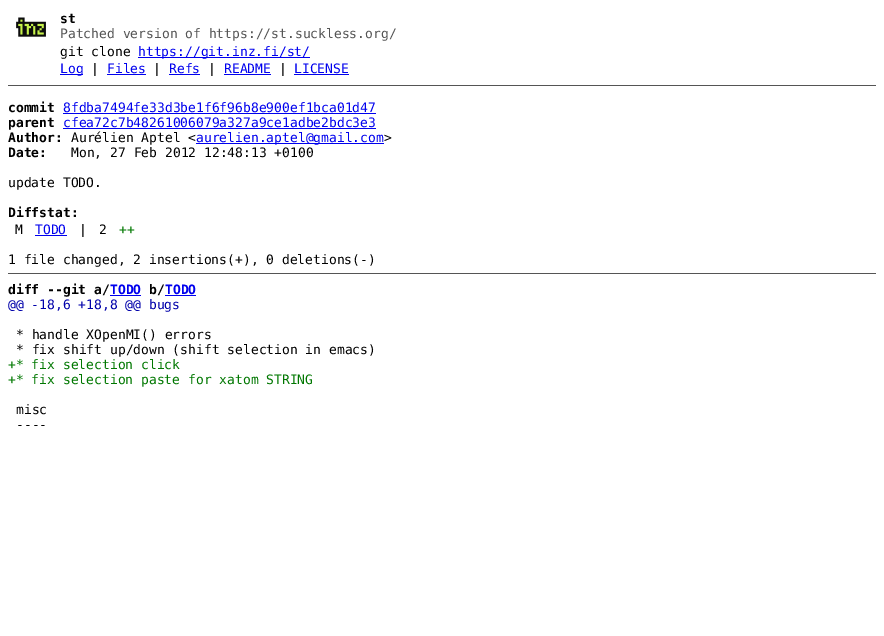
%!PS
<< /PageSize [884 636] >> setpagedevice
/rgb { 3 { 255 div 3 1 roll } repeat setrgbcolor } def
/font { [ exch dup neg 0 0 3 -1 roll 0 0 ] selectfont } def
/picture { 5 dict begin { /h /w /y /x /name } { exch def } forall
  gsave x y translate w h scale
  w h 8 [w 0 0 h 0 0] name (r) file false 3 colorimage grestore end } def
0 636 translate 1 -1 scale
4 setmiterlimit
255 255 255 rgb
0 0 884 636 rectfill
(img/1.rgb) 16 17 30 20 picture
[
  [138 57 172 1 0 0 238]
  [60 74 23 1 0 0 238]
  [107 74 39 1 0 0 238]
  [169 74 31 1 0 0 238]
  [224 74 47 1 0 0 238]
  [294 74 55 1 0 0 238]
  [8 85 868 1 85 85 85]
  [63 113 313 1 0 0 238]
  [63 128 313 1 0 0 238]
  [196 143 188 1 0 0 238]
  [35 235 32 1 0 0 238]
  [8 273 868 1 85 85 85]
  [110 295 31 1 0 0 238]
  [165 295 31 1 0 0 238]
] { aload pop rgb rectfill } forall
/DejaVuSansMono-Bold 13 font
0 0 0 rgb
60 23 moveto (st) show
/DejaVuSansMono-Regular 13 font
85 85 85 rgb
60 38 moveto (Patched version of https://st.suckless.org/) show
0 0 0 rgb
60 56 moveto (git clone) show
0 0 238 rgb
138 56 moveto (https://git.inz.fi/st/) show
60 73 moveto (Log) show
0 0 0 rgb
91 73 moveto (|) show
0 0 238 rgb
107 73 moveto (Files) show
0 0 0 rgb
153 73 moveto (|) show
0 0 238 rgb
169 73 moveto (Refs) show
0 0 0 rgb
208 73 moveto (|) show
0 0 238 rgb
224 73 moveto (README) show
0 0 0 rgb
279 73 moveto (|) show
0 0 238 rgb
294 73 moveto (LICENSE) show
/DejaVuSansMono-Bold 13 font
0 0 0 rgb
8 112 moveto (commit) show
/DejaVuSansMono-Regular 13 font
0 0 238 rgb
63 112 moveto (8fdba7494fe33d3be1f6f96b8e900ef1bca01d47) show
/DejaVuSansMono-Bold 13 font
0 0 0 rgb
8 127 moveto (parent) show
/DejaVuSansMono-Regular 13 font
0 0 238 rgb
63 127 moveto (cfea72c7b48261006079a327a9ce1adbe2bdc3e3) show
/DejaVuSansMono-Bold 13 font
0 0 0 rgb
8 142 moveto (Author:) show
/DejaVuSansMono-Regular 13 font
71 142 moveto (Aurélien Aptel <) show
0 0 238 rgb
196 142 moveto (aurelien.aptel@gmail.com) show
0 0 0 rgb
384 142 moveto (>) show
/DejaVuSansMono-Bold 13 font
8 157 moveto (Date:) show
/DejaVuSansMono-Regular 13 font
71 157 moveto (Mon, 27 Feb 2012 12:48:13 +0100) show
8 187 moveto (update TODO.) show
/DejaVuSansMono-Bold 13 font
8 217 moveto (Diffstat:) show
/DejaVuSansMono-Regular 13 font
15 234 moveto (M) show
0 0 238 rgb
35 234 moveto (TODO) show
0 0 0 rgb
79 234 moveto (|) show
99 234 moveto (2) show
0 119 0 rgb
119 234 moveto (++) show
0 0 0 rgb
8 264 moveto (1 file changed, 2 insertions\(+\), 0 deletions\(-\)) show
/DejaVuSansMono-Bold 13 font
8 294 moveto (diff --git a/) show
0 0 238 rgb
110 294 moveto (TODO) show
0 0 0 rgb
149 294 moveto (b/) show
0 0 238 rgb
165 294 moveto (TODO) show
/DejaVuSansMono-Regular 13 font
0 0 170 rgb
8 309 moveto (@@ -18,6 +18,8 @@ bugs) show
0 0 0 rgb
16 339 moveto (* handle XOpenMI\(\) errors) show
16 354 moveto (* fix shift up/down \(shift selection in emacs\)) show
0 119 0 rgb
8 369 moveto (+* fix selection click) show
8 384 moveto (+* fix selection paste for xatom STRING) show
0 0 0 rgb
16 414 moveto (misc) show
16 429 moveto (----) show
showpage
